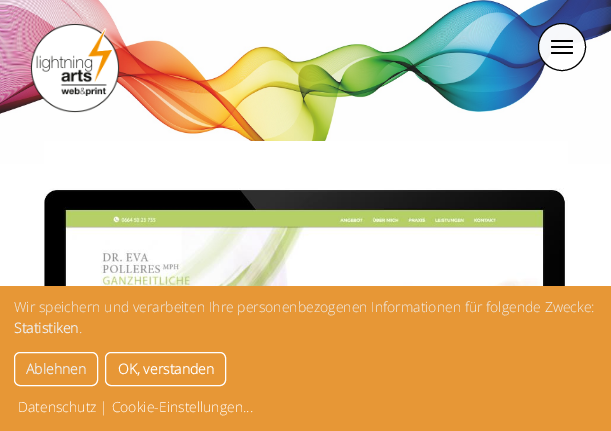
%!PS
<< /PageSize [611 431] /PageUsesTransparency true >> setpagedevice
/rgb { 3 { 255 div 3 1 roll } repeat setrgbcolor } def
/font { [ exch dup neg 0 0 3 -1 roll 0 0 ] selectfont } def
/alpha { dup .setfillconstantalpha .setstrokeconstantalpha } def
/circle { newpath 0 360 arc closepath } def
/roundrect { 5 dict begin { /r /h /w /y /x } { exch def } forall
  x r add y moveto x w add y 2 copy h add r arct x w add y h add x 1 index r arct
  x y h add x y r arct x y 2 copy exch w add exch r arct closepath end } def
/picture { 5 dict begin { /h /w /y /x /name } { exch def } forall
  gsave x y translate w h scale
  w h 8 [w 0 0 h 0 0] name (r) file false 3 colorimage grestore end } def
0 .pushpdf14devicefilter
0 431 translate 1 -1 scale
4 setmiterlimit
255 255 255 rgb
0 0 611 431 rectfill
(img/1.rgb) 0 0 611 164 picture
(img/2.rgb) 30 23 90 90 picture
0.96 alpha
562 47 23.5 circle fill
1 alpha
0 0 0 rgb
562 47 23.5 circle stroke
551 40 22 2 1 roundrect fill
551 46 22 2 1 roundrect fill
551 52 22 2 1 roundrect fill
(img/3.rgb) 44 141 524 145 picture
231 151 54 rgb
0 286 611 145 rectfill
255 255 255 rgb
14.5 352.5 83 33 5.5 roundrect stroke
105.5 352.5 120 33 5.5 roundrect stroke
/OpenSans-Light 14 font
238 238 238 rgb
14 312 moveto (Wir speichern und verarbeiten Ihre personenbezogenen Informationen für folgende Zwecke:) show
/OpenSans-Bold 14 font
14 333 moveto (Statistiken) show
/OpenSans-Light 14 font
79 333 moveto (.) show
/OpenSans-Bold 14 font
26 374 moveto (Ablehnen) show
255 255 255 rgb
118 374 moveto (OK, verstanden) show
/OpenSans-Light 14 font
18 412 moveto (Datenschutz | Cookie-Einstellungen...) show
.poppdf14devicefilter showpage
